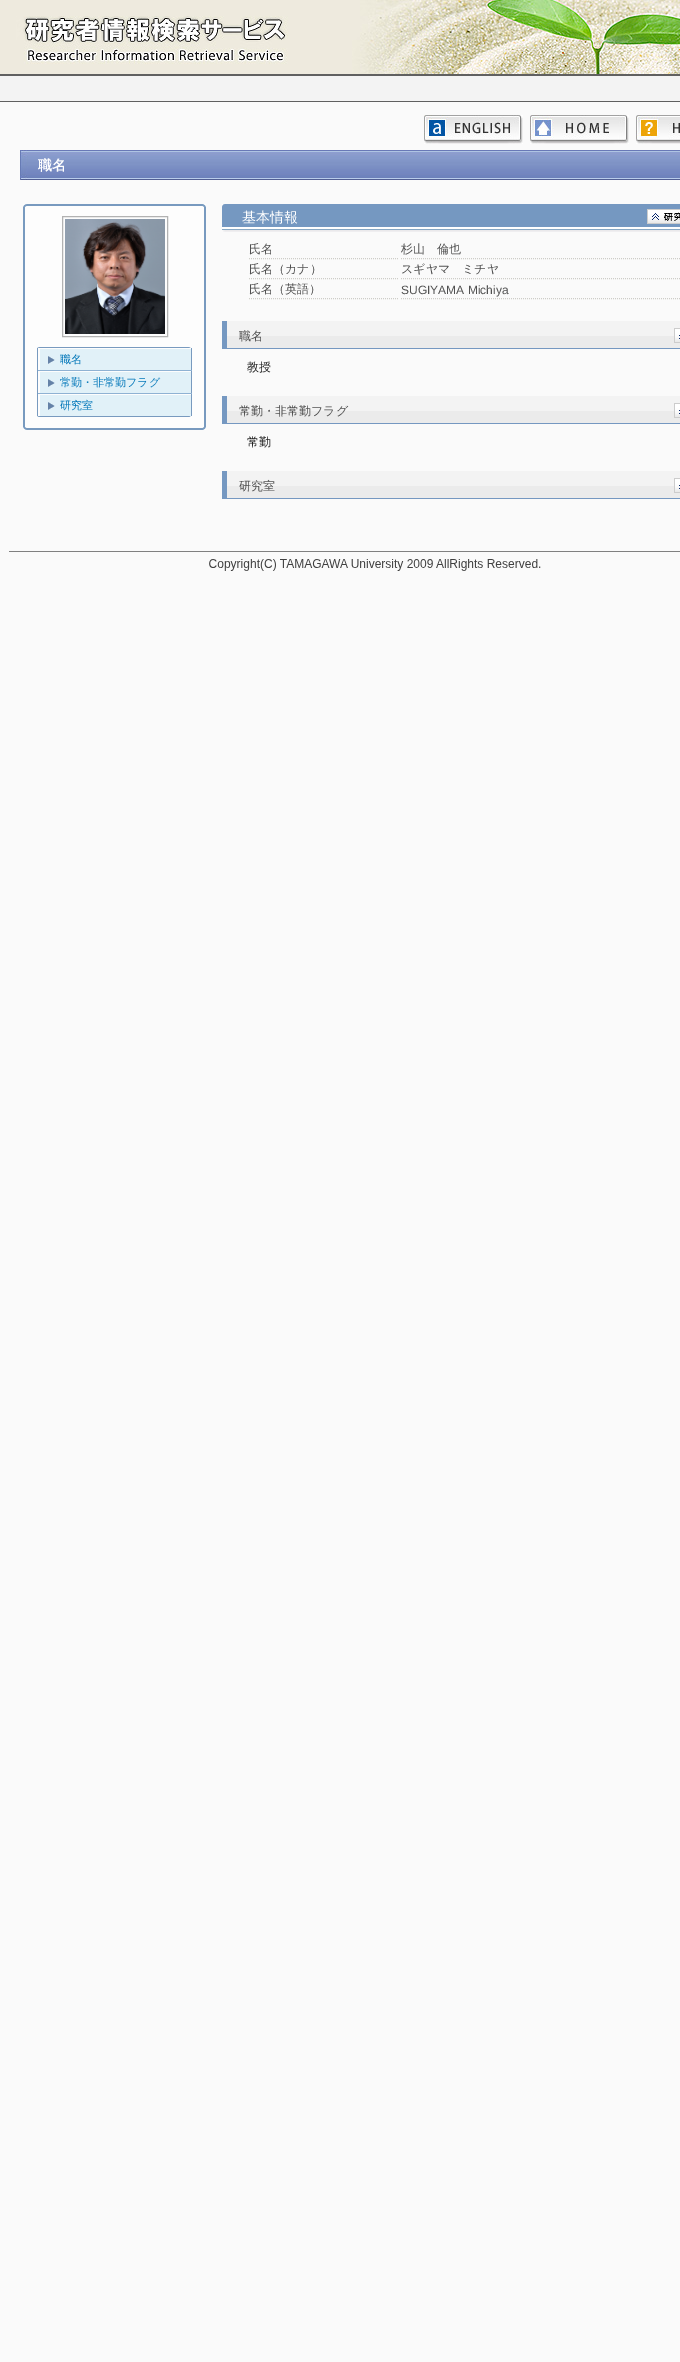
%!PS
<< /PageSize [680 2362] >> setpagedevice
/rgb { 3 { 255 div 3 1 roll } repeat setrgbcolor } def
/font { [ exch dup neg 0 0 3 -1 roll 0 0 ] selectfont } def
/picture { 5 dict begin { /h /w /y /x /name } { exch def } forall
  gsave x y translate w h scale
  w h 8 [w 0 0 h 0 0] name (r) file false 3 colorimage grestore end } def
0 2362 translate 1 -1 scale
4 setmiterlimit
250 250 250 rgb
0 0 680 2362 rectfill
(img/1.rgb) 0 0 680 74 picture
[
  [0 76 680 25 243 243 243]
  [0 74 680 2 96 96 96]
  [0 101 680 1 96 96 96]
] { aload pop rgb rectfill } forall
(img/2.rgb) 424 115 99 29 picture
(img/3.rgb) 530 115 99 29 picture
(img/4.rgb) 636 115 44 29 picture
(img/5.rgb) 20 150 660 30 picture
(img/6.rgb) 23 204 183 3 picture
(img/7.rgb) 23 207 183 220 picture
178 178 178 rgb
62.5 216.5 105 120 rectstroke
(img/8.rgb) 65 219 100 115 picture
(img/9.rgb) 37 347 154 1 picture
[
  [191 348 1 68 120 154 191]
  [37 370 155 1 143 178 211]
  [37 348 1 23 120 154 191]
  [40 349 151 21 225 241 248]
] { aload pop rgb rectfill } forall
(img/10.rgb) 48 356 7 8 picture
[
  [37 393 155 1 143 178 211]
  [37 371 1 45 120 154 191]
  [40 372 151 21 225 241 248]
] { aload pop rgb rectfill } forall
(img/10.rgb) 48 379 7 8 picture
40 395 151 21 rectfill
(img/10.rgb) 48 402 7 8 picture
(img/11.rgb) 37 416 154 1 picture
(img/12.rgb) 23 427 183 3 picture
(img/13.rgb) 222 204 458 28 picture
(img/14.rgb) 647 209 33 15 picture
206 205 200 rgb
[1 1] 0 setdash
249 258.5 moveto 399 258.5 lineto stroke
401 258.5 moveto 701 258.5 lineto stroke
249 278.5 moveto 399 278.5 lineto stroke
401 278.5 moveto 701 278.5 lineto stroke
249 298.5 moveto 399 298.5 lineto stroke
401 298.5 moveto 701 298.5 lineto stroke
(img/15.rgb) 227 321 453 27 picture
117 152 193 rgb
222 348 458 1 rectfill
222 321 5 28 rectfill
(img/16.rgb) 674 328 6 15 picture
(img/15.rgb) 227 396 453 27 picture
222 423 458 1 rectfill
222 396 5 28 rectfill
(img/16.rgb) 674 403 6 15 picture
(img/15.rgb) 227 471 453 27 picture
222 498 458 1 rectfill
222 471 5 28 rectfill
(img/16.rgb) 674 478 6 15 picture
(img/17.rgb) 9 551 671 20 picture
/WenQuanYiZenHei-Bold 14 font
255 255 255 rgb
38 170 moveto (職名) show
/WenQuanYiZenHei-Medium 11 font
0 118 185 rgb
[
  [(職名) 60 363]
  [(常勤・非常勤フラグ) 60 386]
  [(研究室) 60 409]
] { aload pop moveto show } forall
/WenQuanYiZenHei-Medium 14 font
255 255 255 rgb
242 222 moveto (基本情報) show
/WenQuanYiZenHei-Medium 12 font
80 80 80 rgb
[
  [(氏名) 249 253]
  [(杉山　倫也) 401 253]
  [(氏名（カナ）) 249 273]
  [(スギヤマ　ミチヤ) 401 273]
  [(氏名（英語）) 249 293]
] { aload pop moveto show } forall
/LiberationSans-Regular 12 font
401 294 moveto (SUGIYAMA Michiya) show
gsave
239 328 420 17 rectclip
/WenQuanYiZenHei-Medium 12 font
239 340 moveto (職名) show
grestore
/WenQuanYiZenHei-Medium 12 font
34 34 34 rgb
247 371 moveto (教授) show
80 80 80 rgb
239 415 moveto (常勤・非常勤フラグ) show
34 34 34 rgb
247 446 moveto (常勤) show
80 80 80 rgb
239 490 moveto (研究室) show
showpage
